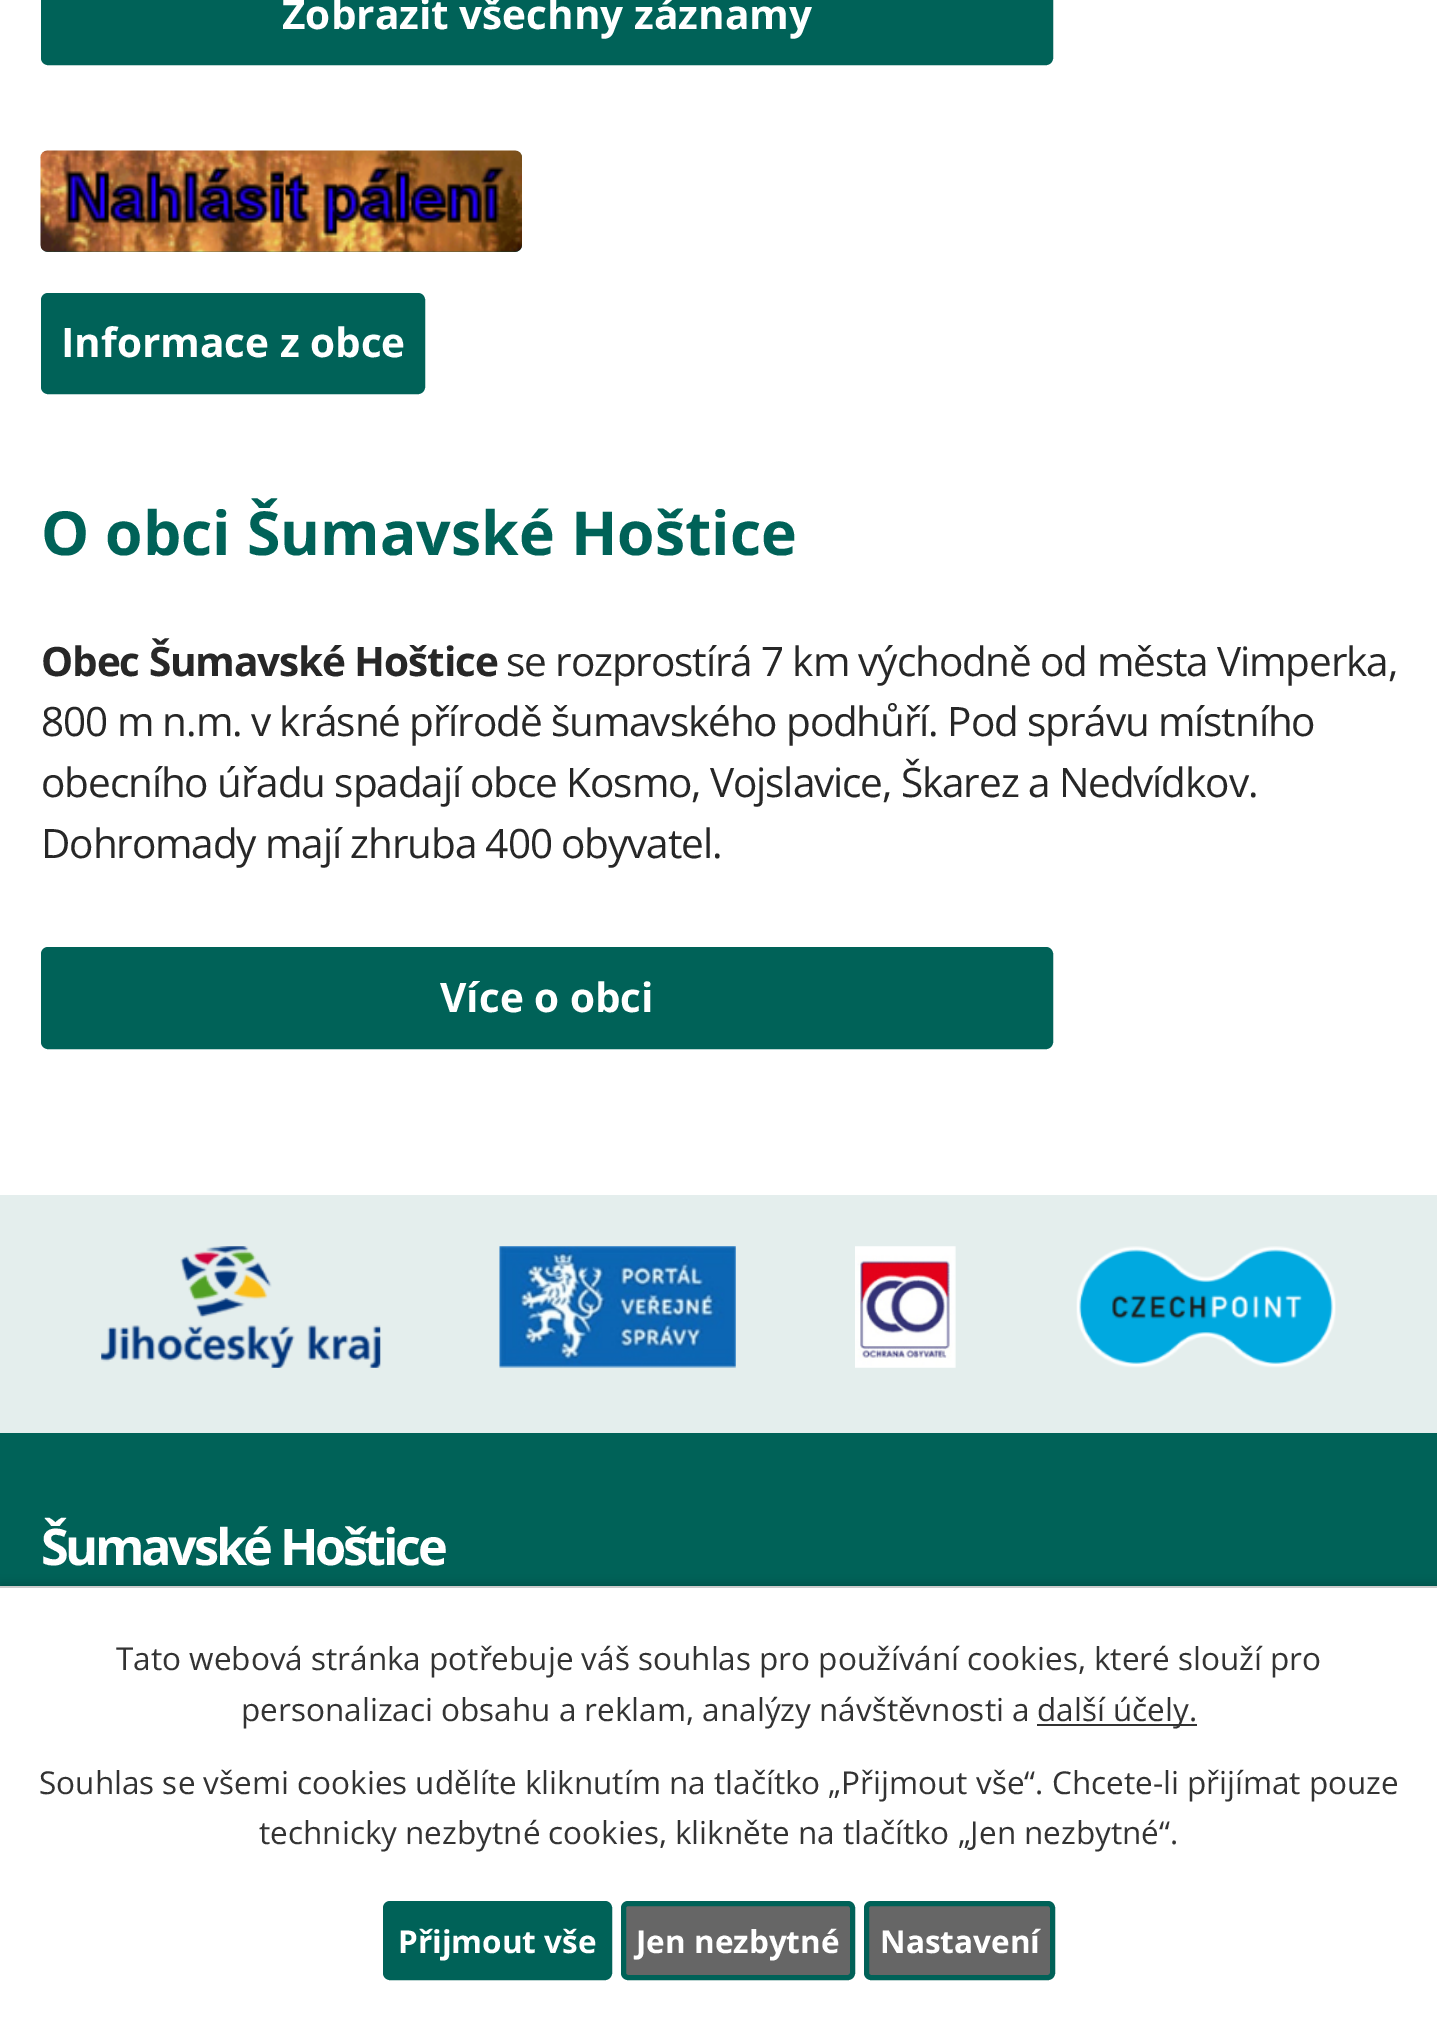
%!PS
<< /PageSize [1437 2022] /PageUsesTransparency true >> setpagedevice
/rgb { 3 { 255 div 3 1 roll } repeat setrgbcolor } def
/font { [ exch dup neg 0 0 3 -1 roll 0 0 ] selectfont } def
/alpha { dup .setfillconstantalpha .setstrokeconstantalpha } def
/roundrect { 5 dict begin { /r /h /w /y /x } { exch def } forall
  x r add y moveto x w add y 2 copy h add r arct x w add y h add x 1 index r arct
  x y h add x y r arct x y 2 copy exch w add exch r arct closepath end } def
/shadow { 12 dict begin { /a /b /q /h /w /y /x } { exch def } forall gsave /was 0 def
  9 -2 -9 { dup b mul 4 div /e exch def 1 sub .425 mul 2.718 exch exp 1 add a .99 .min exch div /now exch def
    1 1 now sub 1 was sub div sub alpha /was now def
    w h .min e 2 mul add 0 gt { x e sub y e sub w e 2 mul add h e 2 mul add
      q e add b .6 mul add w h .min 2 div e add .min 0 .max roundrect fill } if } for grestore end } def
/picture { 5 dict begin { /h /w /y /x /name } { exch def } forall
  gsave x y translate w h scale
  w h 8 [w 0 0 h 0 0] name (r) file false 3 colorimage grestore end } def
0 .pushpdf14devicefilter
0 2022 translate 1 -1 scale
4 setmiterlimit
255 255 255 rgb
0 0 1437 2022 rectfill
0 98 88 rgb
43.5 -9.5 1007 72 4.5 roundrect gsave fill grestore
5 setlinewidth
stroke
41 151 481 101 7 roundrect fill
(img/1.rgb) 40 150 482 102 picture
43.5 295.5 379 96 4.5 roundrect gsave fill grestore
stroke
43.5 949.5 1007 97 4.5 roundrect gsave fill grestore
stroke
228 238 237 rgb
0 1195 1437 238 rectfill
(img/2.rgb) 101 1246 280 122 picture
(img/3.rgb) 499 1246 237 122 picture
(img/4.rgb) 855 1246 101 122 picture
(img/5.rgb) 1076 1246 260 122 picture
0 98 88 rgb
0 1433 1437 153 rectfill
0 0 0 rgb
0 1586 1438 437 0 5.5 0.2 shadow
[
  [0 1588 1437 434 255 255 255]
  [0 1586 1437 2 204 204 204]
  [1037 1724 160 2 51 51 51]
] { aload pop rgb rectfill } forall
0 98 88 rgb
385.5 1903.5 224 74 4.5 roundrect gsave fill grestore
stroke
102 102 102 rgb
623.5 1903.5 229 74 4.5 roundrect gsave fill grestore
0 98 88 rgb
stroke
102 102 102 rgb
866.5 1903.5 186 74 4.5 roundrect gsave fill grestore
0 98 88 rgb
stroke
/OpenSans-Bold 40.5 font
255 255 255 rgb
282 29 moveto (Zobrazit všechny záznamy) show
61 357 moveto (Informace z obce) show
/OpenSans-Bold 60.75 font
0 98 88 rgb
41 555 moveto (O obci Šumavské Hoštice) show
/OpenSans-Bold 40.5 font
39 39 39 rgb
41 676 moveto -1.12 0 (Obec Šumavské Hoštice) ashow
/OpenSans-Regular 40.5 font
506 676 moveto -1.12 0 (se rozprostírá 7 km východně od města Vimperka,) ashow
41 736 moveto -1.12 0 (800 m n.m. v krásné přírodě šumavského podhůří. Pod správu místního) ashow
41 797 moveto -1.12 0 (obecního úřadu spadají obce Kosmo, Vojslavice, Škarez a Nedvídkov.) ashow
41 858 moveto -1.12 0 (Dohromady mají zhruba 400 obyvatel.) ashow
/OpenSans-Bold 40.5 font
255 255 255 rgb
440 1012 moveto (Více o obci) show
/OpenSans-Bold 50.5 font
41 1565 moveto -3.4 0 (Šumavské Hoštice) ashow
/OpenSans-Regular 31.5 font
51 51 51 rgb
[
  [(Tato webová stránka potřebuje váš souhlas pro používání cookies, které slouží pro) 116 1670]
  [(personalizaci obsahu a reklam, analýzy návštěvnosti a) 241 1721]
  [(další účely.) 1037 1721]
  [(Souhlas se všemi cookies udělíte kliknutím na tlačítko „Přijmout vše“. Chcete-li přijímat pouze) 39 1794]
  [(technicky nezbytné cookies, klikněte na tlačítko „Jen nezbytné“.) 259 1844]
] { aload pop moveto show } forall
/OpenSans-Bold 31.5 font
255 255 255 rgb
[
  [(Přijmout vše) 398 1953]
  [(Jen nezbytné) 636 1953]
  [(Nastavení) 880 1953]
] { aload pop moveto show } forall
.poppdf14devicefilter showpage
